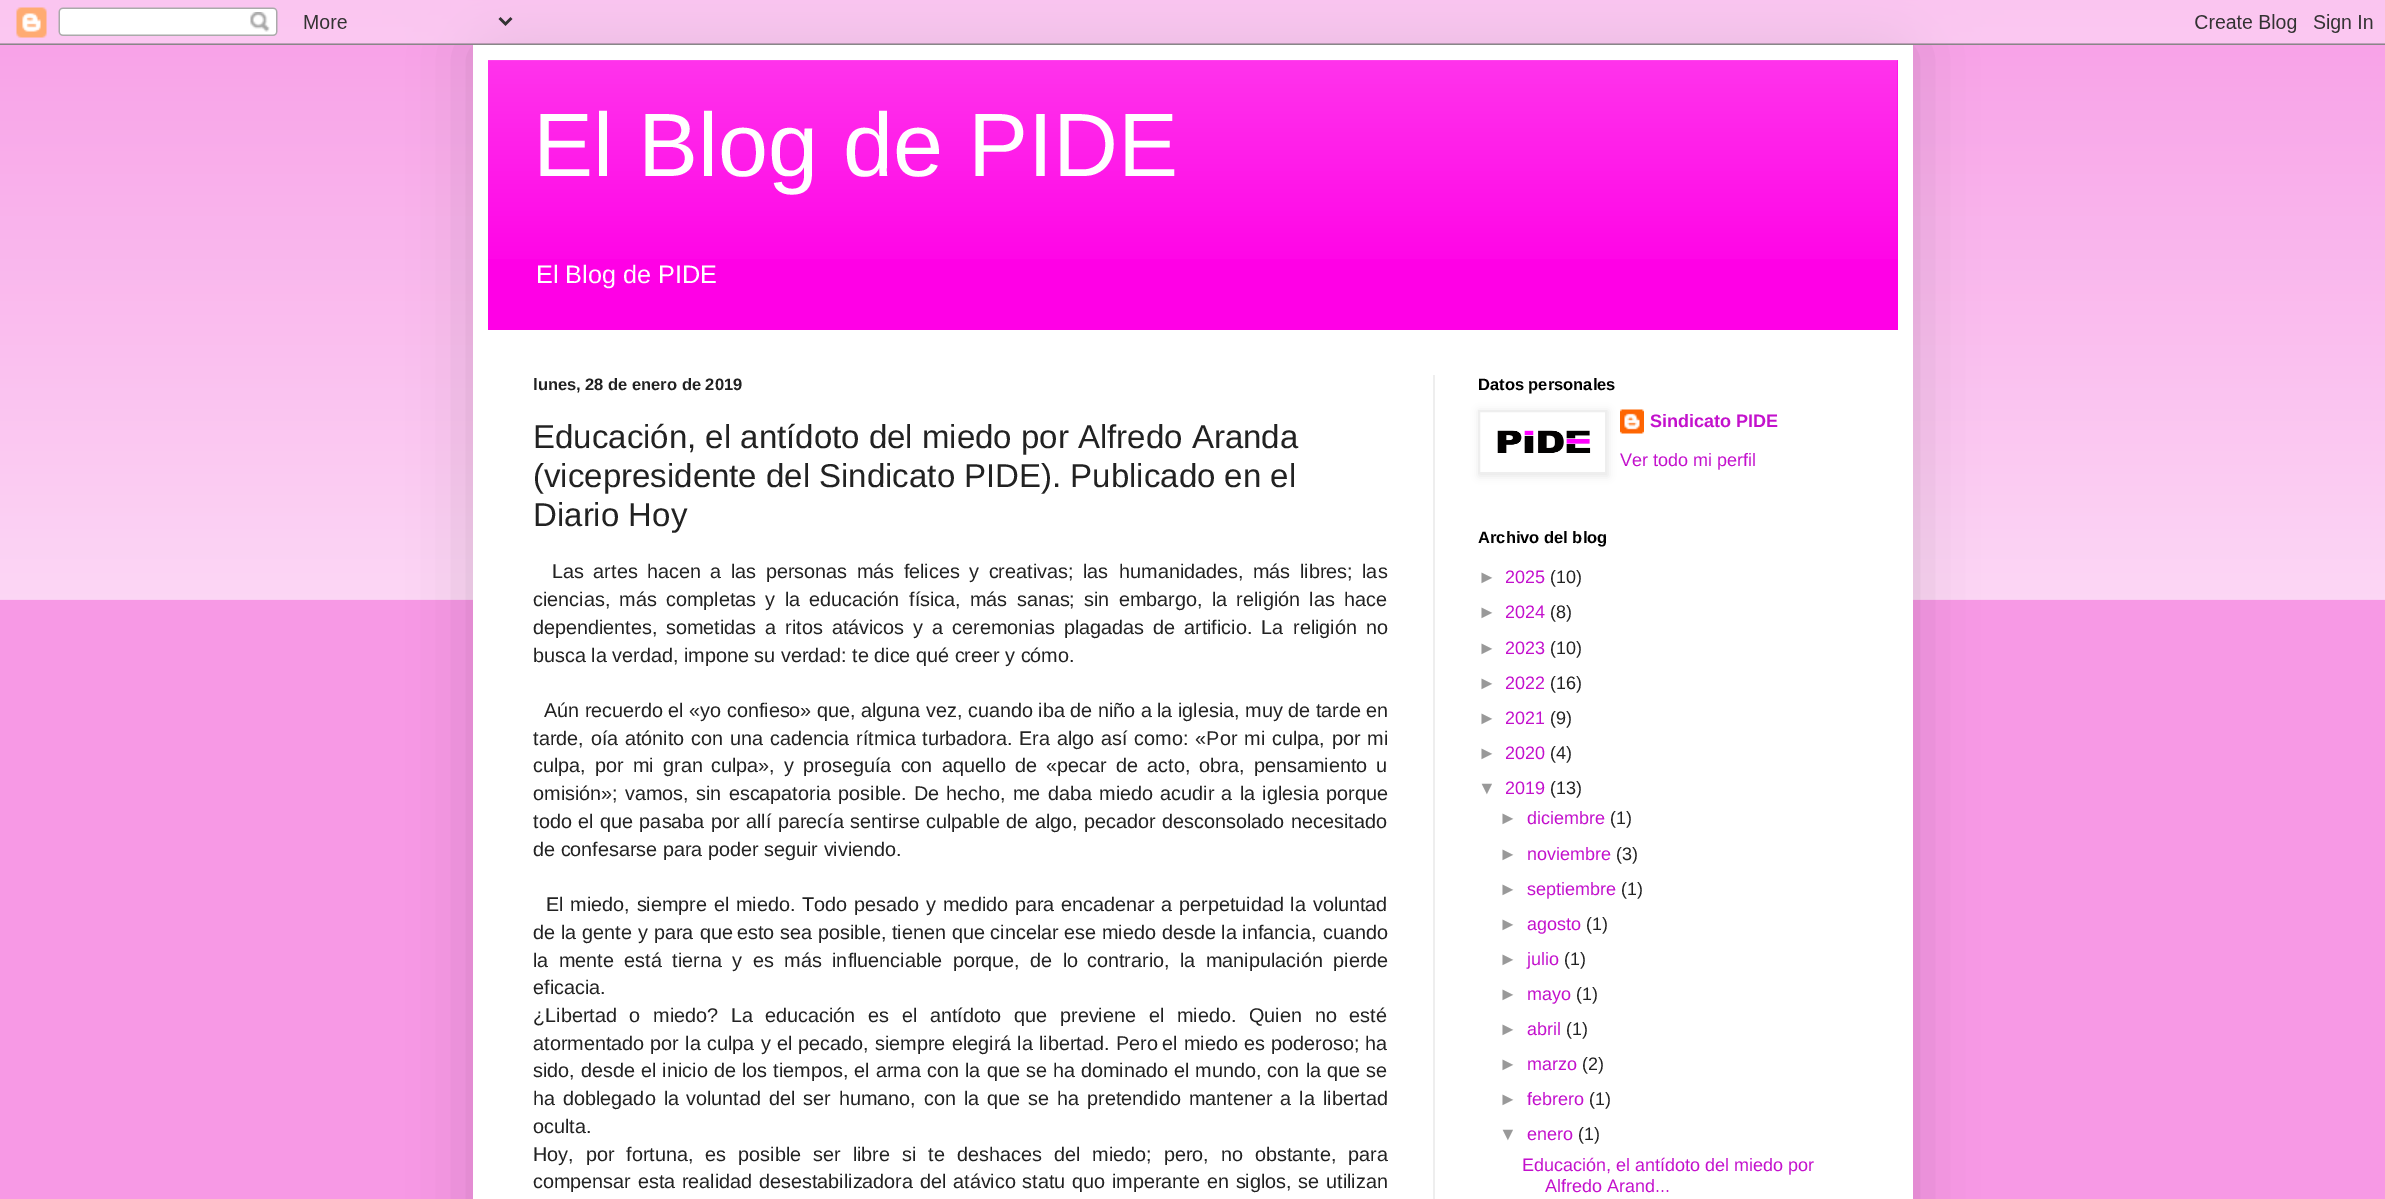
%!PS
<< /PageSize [2385 1199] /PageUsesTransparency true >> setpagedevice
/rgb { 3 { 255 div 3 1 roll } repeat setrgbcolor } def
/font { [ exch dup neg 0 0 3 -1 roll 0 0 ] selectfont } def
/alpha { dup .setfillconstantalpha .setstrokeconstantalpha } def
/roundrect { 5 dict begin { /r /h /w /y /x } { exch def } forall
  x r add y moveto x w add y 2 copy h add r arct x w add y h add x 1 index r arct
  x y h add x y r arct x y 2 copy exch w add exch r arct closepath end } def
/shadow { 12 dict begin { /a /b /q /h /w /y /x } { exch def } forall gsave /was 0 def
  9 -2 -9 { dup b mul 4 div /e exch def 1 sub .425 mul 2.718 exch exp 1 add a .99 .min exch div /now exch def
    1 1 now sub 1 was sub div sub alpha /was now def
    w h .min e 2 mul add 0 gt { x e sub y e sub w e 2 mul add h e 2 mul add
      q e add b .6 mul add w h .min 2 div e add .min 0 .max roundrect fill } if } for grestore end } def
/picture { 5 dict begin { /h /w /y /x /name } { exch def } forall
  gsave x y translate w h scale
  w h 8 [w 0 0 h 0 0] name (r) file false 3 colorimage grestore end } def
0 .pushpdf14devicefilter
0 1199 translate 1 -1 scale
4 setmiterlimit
247 153 229 rgb
0 0 2385 1199 rectfill
(img/1.rgb) 0 0 2385 600 picture
0 0 0 rgb
473 45 1440 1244 0 30 0.15 shadow
(img/2.rgb) 0 0 2385 45 picture
255 255 255 rgb
473 45 1440 1154 rectfill
255 0 230 rgb
488 60 1410 270 rectfill
(img/3.rgb) 488 60 1410 199 picture
238 238 238 rgb
1433 375 2 824 rectfill
(img/5.rgb) 1620 409 24 25 picture
0 0 0 rgb
1479 411 129 65 0 4 0.1 shadow
255 255 255 rgb
1479 411 moveto 1606 411 lineto 1606 473 lineto 1479 473 lineto closepath gsave fill grestore
238 238 238 rgb
2 setlinewidth
stroke
(img/4.rgb) 1497 430 94 23 picture
/LiberationSans-Regular 90 font
255 255 255 rgb
533 176 moveto (El Blog de PIDE) show
/LiberationSans-Regular 25.25 font
536 283 moveto (El Blog de PIDE) show
/LiberationSans-Bold 16.5 font
34 34 34 rgb
533 390 moveto (lunes, 28 de enero de 2019) show
/LiberationSans-Regular 33 font
[
  [(Educación, el antídoto del miedo por Alfredo Aranda) 533 448]
  [(\(vicepresidente del Sindicato PIDE\). Publicado en el) 533 487]
  [(Diario Hoy) 533 526]
] { aload pop moveto show } forall
/LiberationSans-Regular 19.8 font
552 578 moveto 4 0 32 (Las artes hacen a las personas más felices y creativas; las) widthshow
1119 578 moveto 4 0 32 (humanidades, más libres; las) widthshow
533 606 moveto 3.75 0 32 (ciencias, más completas y la educación) widthshow
909 606 moveto 3.75 0 32 (física, más sanas; sin embargo, la religión las hace) widthshow
533 634 moveto (dependientes,) show
666 634 moveto 3.5 0 32 (sometidas a ritos atávicos y a ceremonias plagadas de artificio. La) widthshow
1293 634 moveto 3.5 0 32 (religión no) widthshow
533 662 moveto (busca la verdad, impone su verdad: te dice qué creer y cómo.) show
544 717 moveto (Aún recuerdo el «yo confieso» que, alguna vez, cuando iba de niño a la iglesia, muy de tarde en) show
533 745 moveto 1.4 0 32 (tarde, oía atónito con una cadencia rítmica) widthshow
922 745 moveto 1.4 0 32 (turbadora. Era algo así como: «Por mi culpa, por mi) widthshow
533 772 moveto 3.75 0 32 (culpa, por mi gran) widthshow
711 772 moveto 3.75 0 32 (culpa», y proseguía con aquello de «pecar de acto, obra, pensamiento u) widthshow
533 800 moveto 1.75 0 32 (omisión»; vamos, sin escapatoria posible. De hecho, me daba miedo acudir) widthshow
1221 800 moveto 2 0 32 (a la iglesia porque) widthshow
533 828 moveto 1 0 32 (todo el que pasaba por allí parecía sentirse) widthshow
926 828 moveto 1 0 32 (culpable de algo, pecador desconsolado necesitado) widthshow
533 856 moveto (de confesarse para poder seguir viviendo.) show
546 911 moveto 1.25 0 32 (El miedo, siempre el miedo. Todo pesado y) widthshow
943 911 moveto 1.25 0 32 (medido para encadenar a perpetuidad la voluntad) widthshow
533 939 moveto 0.5 0 32 (de la gente y para que) widthshow
737 939 moveto 0.25 0 32 (esto sea posible, tienen que cincelar ese miedo desde la infancia,) widthshow
1323 939 moveto (cuando) show
533 967 moveto 5 0 32 (la mente está tierna y es más influenciable porque, de lo) widthshow
1087 967 moveto 5 0 32 (contrario, la manipulación pierde) widthshow
533 994 moveto (eficacia.) show
533 1022 moveto 7.25 0 32 (¿Libertad o miedo? La) widthshow
765 1022 moveto 7.25 0 32 (educación es el antídoto que previene el miedo. Quien no esté) widthshow
533 1050 moveto 0.75 0 32 (atormentado por la culpa y el pecado, siempre elegirá la libertad. Pero) widthshow
1162 1050 moveto 0.75 0 32 (el miedo es poderoso; ha) widthshow
533 1077 moveto 0.6 0 32 (sido, desde el inicio de los tiempos, el arma) widthshow
927 1077 moveto 0.6 0 32 (con la que se ha dominado el mundo, con la que se) widthshow
533 1105 moveto 2.5 0 32 (ha doblegado la) widthshow
686 1105 moveto 2.5 0 32 (voluntad del ser humano, con la que se ha pretendido mantener a la) widthshow
1323 1105 moveto (libertad) show
533 1133 moveto (oculta.) show
533 1161 moveto 6.5 0 32 (Hoy, por fortuna, es posible ser libre si te) widthshow
957 1161 moveto 6.5 0 32 (deshaces del miedo; pero, no obstante, para) widthshow
533 1188 moveto 1.25 0 32 (compensar esta realidad) widthshow
759 1188 moveto 1.25 0 32 (desestabilizadora del atávico statu quo imperante en siglos, se utilizan) widthshow
/LiberationSans-Bold 16.5 font
0 0 0 rgb
1478 390 moveto (Datos personales) show
/LiberationSans-Bold 18 font
195 17 204 rgb
1650 427 moveto (Sindicato PIDE) show
/LiberationSans-Regular 18 font
1620 466 moveto (Ver todo mi perfil) show
/LiberationSans-Bold 16.5 font
0 0 0 rgb
1478 543 moveto (Archivo del blog) show
/LiberationSans-Regular 18 font
153 153 153 rgb
1478 583 moveto (►) show
195 17 204 rgb
1505 583 moveto (2025) show
34 34 34 rgb
1550 583 moveto (\(10\)) show
153 153 153 rgb
1478 618 moveto (►) show
195 17 204 rgb
1505 618 moveto (2024) show
34 34 34 rgb
1550 618 moveto (\(8\)) show
153 153 153 rgb
1478 654 moveto (►) show
195 17 204 rgb
1505 654 moveto (2023) show
34 34 34 rgb
1550 654 moveto (\(10\)) show
153 153 153 rgb
1478 689 moveto (►) show
195 17 204 rgb
1505 689 moveto (2022) show
34 34 34 rgb
1550 689 moveto (\(16\)) show
153 153 153 rgb
1478 724 moveto (►) show
195 17 204 rgb
1505 724 moveto (2021) show
34 34 34 rgb
1550 724 moveto (\(9\)) show
153 153 153 rgb
1478 759 moveto (►) show
195 17 204 rgb
1505 759 moveto (2020) show
34 34 34 rgb
1550 759 moveto (\(4\)) show
153 153 153 rgb
1478 794 moveto (▼) show
195 17 204 rgb
1505 794 moveto (2019) show
34 34 34 rgb
1550 794 moveto (\(13\)) show
153 153 153 rgb
1499 824 moveto (►) show
195 17 204 rgb
1527 824 moveto (diciembre) show
34 34 34 rgb
1610 824 moveto (\(1\)) show
153 153 153 rgb
1499 860 moveto (►) show
195 17 204 rgb
1527 860 moveto (noviembre) show
34 34 34 rgb
1616 860 moveto (\(3\)) show
153 153 153 rgb
1499 895 moveto (►) show
195 17 204 rgb
1527 895 moveto (septiembre) show
34 34 34 rgb
1621 895 moveto (\(1\)) show
153 153 153 rgb
1499 930 moveto (►) show
195 17 204 rgb
1527 930 moveto (agosto) show
34 34 34 rgb
1586 930 moveto (\(1\)) show
153 153 153 rgb
1499 965 moveto (►) show
195 17 204 rgb
1527 965 moveto (julio) show
34 34 34 rgb
1564 965 moveto (\(1\)) show
153 153 153 rgb
1499 1000 moveto (►) show
195 17 204 rgb
1527 1000 moveto (mayo) show
34 34 34 rgb
1576 1000 moveto (\(1\)) show
153 153 153 rgb
1499 1035 moveto (►) show
195 17 204 rgb
1527 1035 moveto (abril) show
34 34 34 rgb
1566 1035 moveto (\(1\)) show
153 153 153 rgb
1499 1070 moveto (►) show
195 17 204 rgb
1527 1070 moveto (marzo) show
34 34 34 rgb
1582 1070 moveto (\(2\)) show
153 153 153 rgb
1499 1105 moveto (►) show
195 17 204 rgb
1527 1105 moveto (febrero) show
34 34 34 rgb
1589 1105 moveto (\(1\)) show
153 153 153 rgb
1499 1140 moveto (▼) show
195 17 204 rgb
1527 1140 moveto (enero) show
34 34 34 rgb
1578 1140 moveto (\(1\)) show
195 17 204 rgb
1522 1171 moveto (Educación, el antídoto del miedo por) show
1545 1192 moveto (Alfredo Arand...) show
.poppdf14devicefilter showpage
